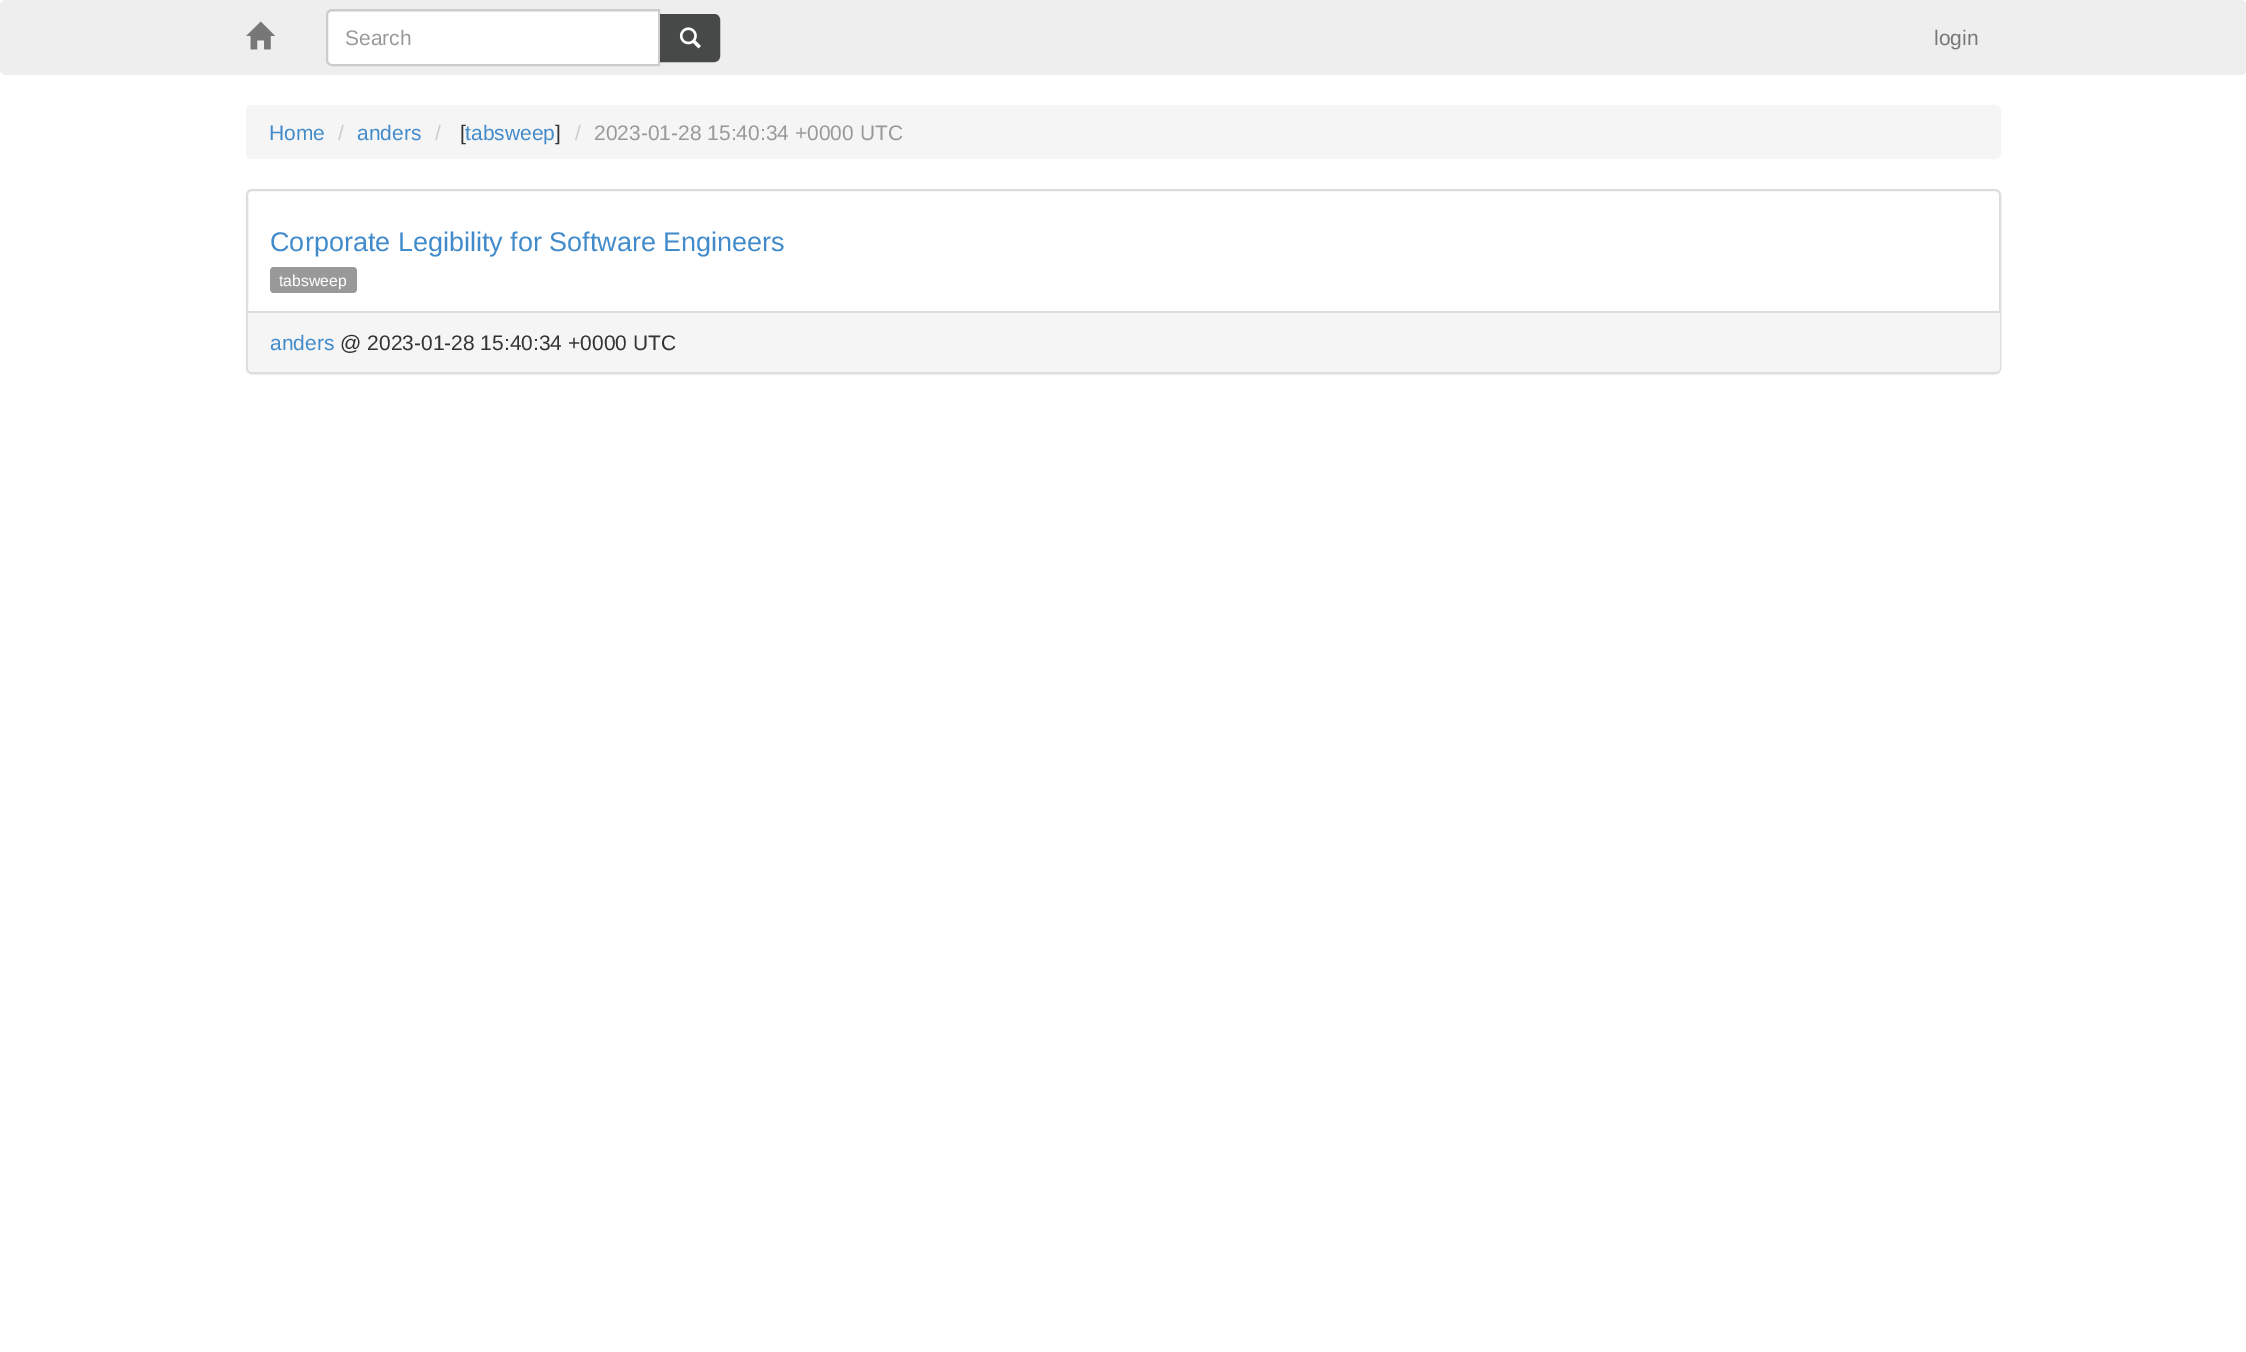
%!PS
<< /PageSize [2246 1352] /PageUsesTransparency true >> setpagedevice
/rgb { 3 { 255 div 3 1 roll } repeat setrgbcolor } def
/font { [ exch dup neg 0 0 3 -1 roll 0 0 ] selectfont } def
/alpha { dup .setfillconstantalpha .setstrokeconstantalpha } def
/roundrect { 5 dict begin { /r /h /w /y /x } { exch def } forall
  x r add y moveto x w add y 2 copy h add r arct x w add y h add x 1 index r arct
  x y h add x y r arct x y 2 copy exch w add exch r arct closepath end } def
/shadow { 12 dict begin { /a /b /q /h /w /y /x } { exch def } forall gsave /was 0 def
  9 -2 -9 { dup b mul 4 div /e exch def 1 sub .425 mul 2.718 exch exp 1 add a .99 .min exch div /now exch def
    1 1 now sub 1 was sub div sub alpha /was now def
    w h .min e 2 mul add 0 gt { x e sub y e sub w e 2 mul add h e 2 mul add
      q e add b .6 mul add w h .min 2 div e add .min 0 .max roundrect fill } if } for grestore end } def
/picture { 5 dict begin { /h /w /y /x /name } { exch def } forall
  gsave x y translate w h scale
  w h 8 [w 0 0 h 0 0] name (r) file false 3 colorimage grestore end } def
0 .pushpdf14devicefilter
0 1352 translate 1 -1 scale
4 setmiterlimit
255 255 255 rgb
0 0 2246 1352 rectfill
238 238 238 rgb
0 0 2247 75 6 roundrect fill
(img/1.rgb) 246 21 30 29 picture
255 255 255 rgb
332 9 moveto 660 9 lineto 660 66 lineto 332 66 lineto 328.5 66 326 63.5 326 60 curveto 326 15 lineto 326 11.5 328.5 9 332 9 curveto closepath fill
236 236 236 rgb
332 12 moveto 658 12 lineto 658 65 lineto 659 65 lineto 659 11 lineto 332 11 lineto 329 11 327 13 327 16 curveto 327 14 329 12 332 12 curveto closepath fill
204 204 204 rgb
2 setlinewidth
332 10 moveto 659 10 lineto 659 65 lineto 332 65 lineto 329 65 327 63 327 60 curveto 327 15 lineto 327 12 329 10 332 10 curveto closepath stroke
71 73 73 rgb
661 15 moveto 714 15 lineto 717 15 719 17 719 20 curveto 719 56 lineto 719 59 717 61 714 61 curveto 661 61 lineto closepath gsave fill grestore
stroke
(img/2.rgb) 679 27 22 22 picture
245 245 245 rgb
246 105 1755 54 6 roundrect fill
0 0 0 rgb
246 191 1755 184 6 1 0.05 shadow
255 255 255 rgb
247 190 1753 183 5 roundrect gsave fill grestore
221 221 221 rgb
stroke
153 153 153 rgb
270 267 87 26 4 roundrect fill
245 245 245 rgb
248 311 moveto 2000 311 lineto 2000 367 lineto 2000 370 1998 372 1995 372 curveto 253 372 lineto 250 372 248 370 248 367 curveto closepath fill
221 221 221 rgb
248 311 1752 2 rectfill
/LiberationSans-Regular 21 font
153 153 153 rgb
345 45 moveto (Search) show
119 119 119 rgb
1934 45 moveto (login) show
66 139 202 rgb
269 140 moveto (Home) show
204 204 204 rgb
338 140 moveto (/) show
66 139 202 rgb
357 140 moveto (anders) show
204 204 204 rgb
435 140 moveto (/) show
51 51 51 rgb
460 140 moveto ([) show
66 139 202 rgb
465 140 moveto (tabsweep) show
51 51 51 rgb
555 140 moveto (]) show
204 204 204 rgb
575 140 moveto (/) show
153 153 153 rgb
594 140 moveto (2023-01-28 15:40:34 +0000 UTC) show
/LiberationSans-Regular 27 font
66 139 202 rgb
270 251 moveto (Corporate Legibility for Software Engineers) show
/LiberationSans-Regular 15.75 font
255 255 255 rgb
279 286 moveto (tabsweep) show
/LiberationSans-Regular 21 font
66 139 202 rgb
270 350 moveto (anders) show
51 51 51 rgb
340 350 moveto (@ 2023-01-28 15:40:34 +0000 UTC) show
.poppdf14devicefilter showpage
